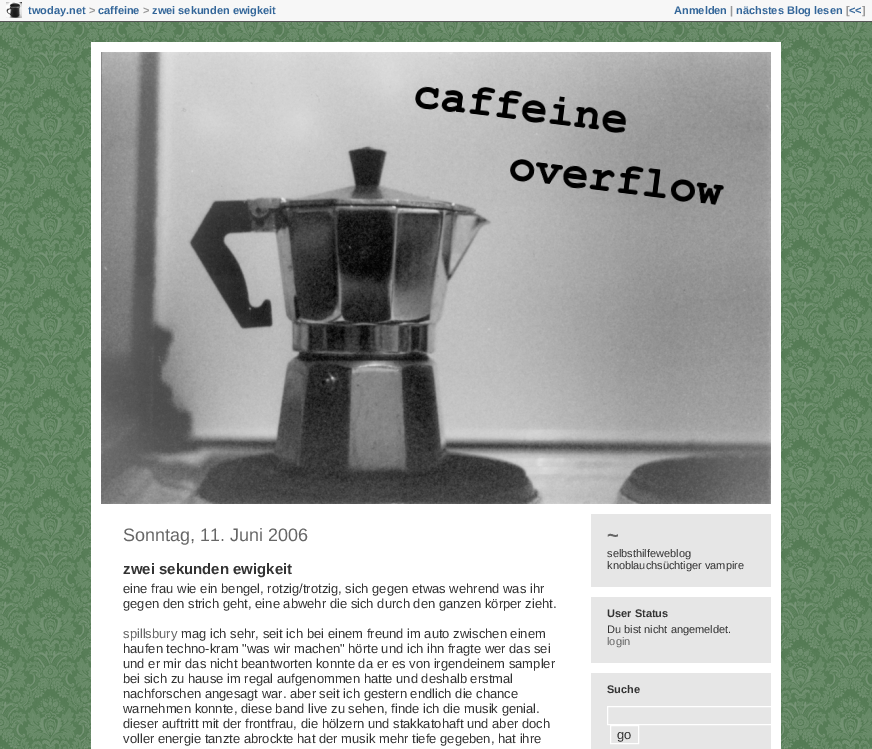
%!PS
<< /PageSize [872 749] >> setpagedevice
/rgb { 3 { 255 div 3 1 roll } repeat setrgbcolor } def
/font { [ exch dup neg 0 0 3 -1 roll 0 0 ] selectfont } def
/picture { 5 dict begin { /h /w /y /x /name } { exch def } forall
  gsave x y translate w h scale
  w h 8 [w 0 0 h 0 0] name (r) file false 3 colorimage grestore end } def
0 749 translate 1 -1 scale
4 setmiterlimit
255 255 255 rgb
0 0 872 749 rectfill
(img/1.rgb) 0 22 872 727 picture
247 247 247 rgb
0 0 872 21 rectfill
85 85 85 rgb
0 21 872 1 rectfill
(img/2.rgb) 6 2 16 16 picture
255 255 255 rgb
91 42 690 707 rectfill
(img/3.rgb) 101 52 670 452 picture
[
  [591 514 180 73 230 230 230]
  [591 597 180 66 230 230 230]
  [591 673 180 76 230 230 230]
] { aload pop rgb rectfill } forall
gsave
591 514 180 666 rectclip
255 255 255 rgb
607.5 706.5 181 18 rectstroke
grestore
255 255 255 rgb
610.5 725.5 28 18 rectstroke
/LiberationSans-Bold 11 font
51 102 153 rgb
28 14 moveto (twoday.net) show
153 153 153 rgb
89 14 moveto (>) show
51 102 153 rgb
98 14 moveto (caffeine) show
153 153 153 rgb
143 14 moveto (>) show
51 102 153 rgb
152 14 moveto (zwei sekunden ewigkeit) show
674 14 moveto (Anmelden) show
153 153 153 rgb
730 14 moveto (|) show
51 102 153 rgb
736 14 moveto (nächstes Blog lesen) show
153 153 153 rgb
846 14 moveto ([) show
51 102 153 rgb
849 14 moveto (<<) show
153 153 153 rgb
862 14 moveto (]) show
/LiberationSans-Regular 18 font
102 102 102 rgb
123 541 moveto (Sonntag, 11. Juni 2006) show
/LiberationSans-Bold 15 font
51 51 51 rgb
123 574 moveto (zwei sekunden ewigkeit) show
/LiberationSans-Regular 13 font
123 593 moveto (eine frau wie ein bengel, rotzig/trotzig, sich gegen etwas wehrend was ihr) show
123 608 moveto (gegen den strich geht, eine abwehr die sich durch den ganzen körper zieht.) show
102 102 102 rgb
123 638 moveto (spillsbury) show
51 51 51 rgb
[
  [(mag ich sehr, seit ich bei einem freund im auto zwischen einem) 181 638]
  [(haufen techno-kram "was wir machen" hörte und ich ihn fragte wer das sei) 123 653]
  [(und er mir das nicht beantworten konnte da er es von irgendeinem sampler) 123 668]
  [(bei sich zu hause im regal aufgenommen hatte und deshalb erstmal) 123 683]
  [(nachforschen angesagt war. aber seit ich gestern endlich die chance) 123 698]
  [(warnehmen konnte, diese band live zu sehen, finde ich die musik genial.) 123 713]
  [(dieser auftritt mit der frontfrau, die hölzern und stakkatohaft und aber doch) 123 728]
  [(voller energie tanzte abrockte hat der musik mehr tiefe gegeben, hat ihre) 123 743]
] { aload pop moveto show } forall
/LiberationSans-Bold 20 font
102 102 102 rgb
607 542 moveto (~) show
/LiberationSans-Regular 11 font
51 51 51 rgb
607 557 moveto (selbsthilfeweblog) show
607 569 moveto (knoblauchsüchtiger vampire) show
/LiberationSans-Bold 11 font
607 617 moveto (User Status) show
/LiberationSans-Regular 11 font
607 633 moveto (Du bist nicht angemeldet.) show
102 102 102 rgb
607 645 moveto (login) show
/LiberationSans-Bold 11 font
51 51 51 rgb
607 693 moveto (Suche) show
/LiberationSans-Regular 13 font
617 739 moveto (go) show
showpage
